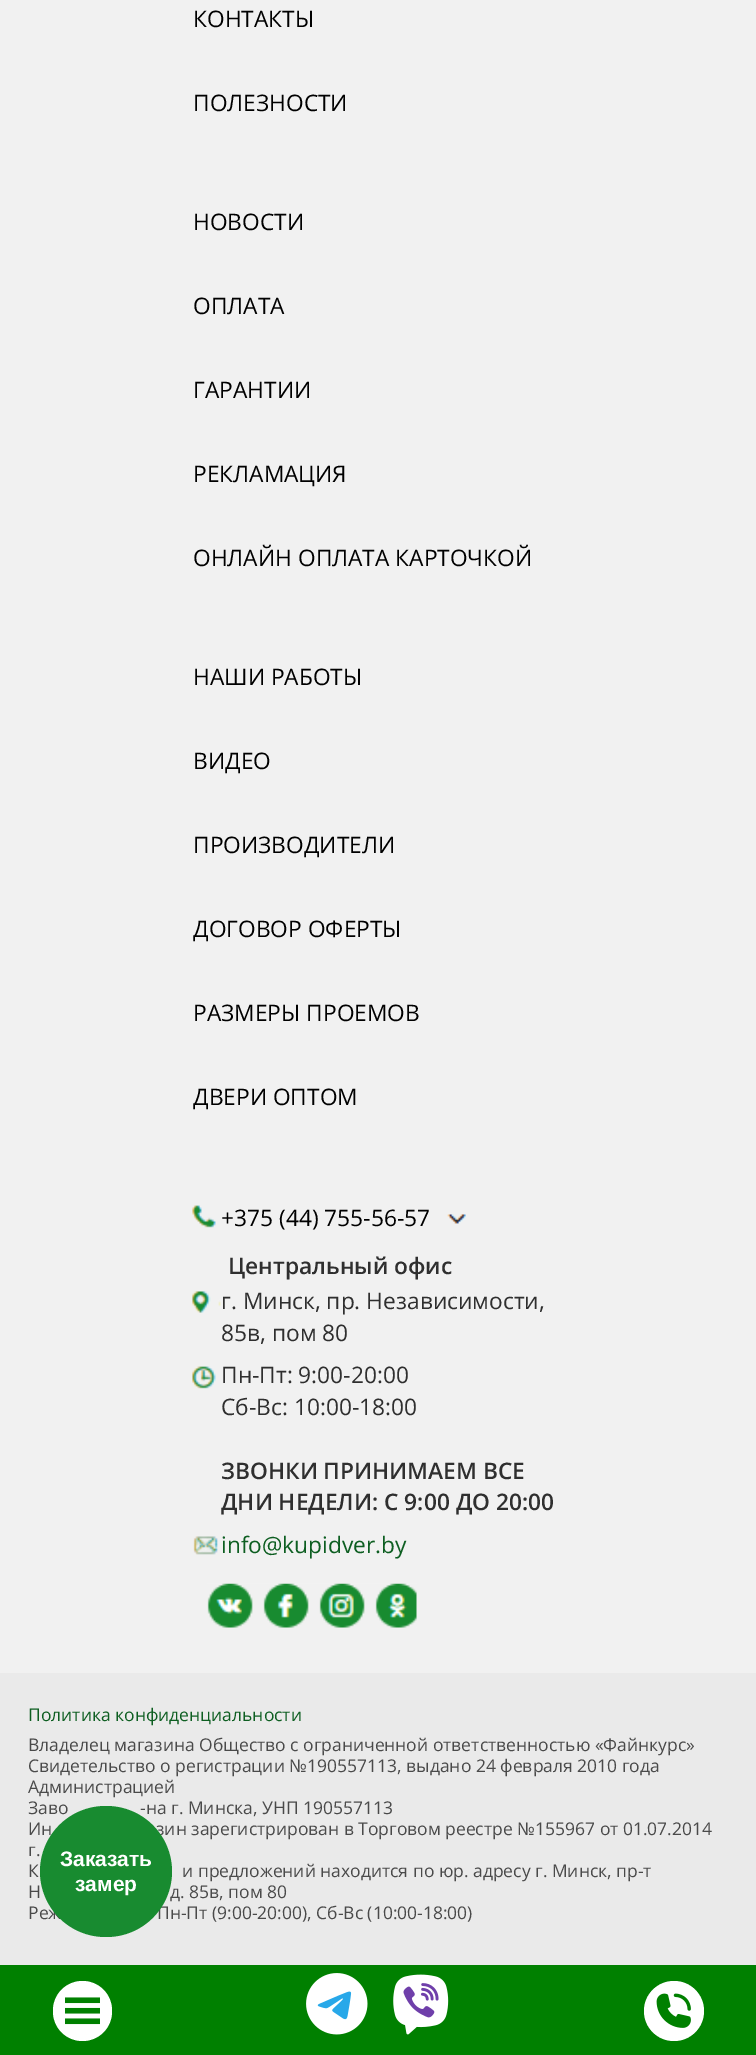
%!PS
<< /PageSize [756 2055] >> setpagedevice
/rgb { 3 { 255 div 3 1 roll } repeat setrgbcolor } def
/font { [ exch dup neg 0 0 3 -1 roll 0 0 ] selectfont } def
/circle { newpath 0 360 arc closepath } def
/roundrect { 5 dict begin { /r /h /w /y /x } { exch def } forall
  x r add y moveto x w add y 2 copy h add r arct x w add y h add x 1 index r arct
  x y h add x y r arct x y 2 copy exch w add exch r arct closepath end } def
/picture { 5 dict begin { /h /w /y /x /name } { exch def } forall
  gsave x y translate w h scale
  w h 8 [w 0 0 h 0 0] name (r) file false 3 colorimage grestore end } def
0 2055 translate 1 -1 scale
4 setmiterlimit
241 241 241 rgb
0 0 756 2055 rectfill
(img/1.rgb) 192 1205 24 23 picture
(img/2.rgb) 447 1214 19 10 picture
(img/3.rgb) 192 1291 29 22 picture
(img/4.rgb) 192 1366 24 23 picture
(img/5.rgb) 193 1536 25 19 picture
(img/6.rgb) 207 1583 210 45 picture
234 234 234 rgb
0 1673 756 292 rectfill
0 128 0 rgb
0 1965 756 90 rectfill
255 255 255 rgb
53 1981 59 60 29.5 roundrect fill
(img/7.rgb) 65 1997 35 28 picture
(img/8.rgb) 306 1973 62 62 picture
(img/9.rgb) 393 1974 56 61 picture
674 2011 30 circle fill
(img/10.rgb) 656 1993 35 35 picture
/OpenSans-Regular 22.75 font
0 0 0 rgb
[
  [(КОНТАКТЫ) 193 27]
  [(ПОЛЕЗНОСТИ) 193 111]
  [(НОВОСТИ) 193 230]
  [(ОПЛАТА) 193 314]
  [(ГАРАНТИИ) 193 398]
  [(РЕКЛАМАЦИЯ) 193 482]
  [(ОНЛАЙН ОПЛАТА КАРТОЧКОЙ) 193 566]
  [(НАШИ РАБОТЫ) 193 685]
  [(ВИДЕО) 193 769]
  [(ПРОИЗВОДИТЕЛИ) 193 853]
  [(ДОГОВОР ОФЕРТЫ) 193 937]
  [(РАЗМЕРЫ ПРОЕМОВ) 193 1021]
  [(ДВЕРИ ОПТОМ) 193 1105]
  [(+375 \(44\) 755-56-57) 221 1226]
] { aload pop moveto show } forall
/OpenSans-SemiBold 22.75 font
47 47 47 rgb
228 1274 moveto (Центральный офис) show
/OpenSans-Regular 22.75 font
[
  [(г. Минск, пр. Независимости,) 221 1309]
  [(85в, пом 80) 221 1341]
  [(Пн-Пт: 9:00-20:00) 221 1383]
  [(Сб-Вс: 10:00-18:00) 221 1415]
] { aload pop moveto show } forall
/OpenSans-SemiBold 22.75 font
221 1479 moveto (ЗВОНКИ ПРИНИМАЕМ ВСЕ) show
221 1510 moveto (ДНИ НЕДЕЛИ: С 9:00 ДО 20:00) show
/OpenSans-Regular 22.75 font
13 94 33 rgb
221 1553 moveto (info@kupidver.by) show
/OpenSans-Regular 17.5 font
28 1721 moveto (Политика конфиденциальности) show
74 74 74 rgb
[
  [(Владелец магазина Общество с ограниченной ответственностью «Файнкурс») 28 1751]
  [(Свидетельство о регистрации №190557113, выдано 24 февраля 2010 года) 28 1772]
  [(Администрацией) 28 1793]
  [(Заво) 28 1814]
  [(-на г. Минска, УНП 190557113) 140 1814]
  [(Ин) 28 1835]
  [(зин зарегистрирован в Торговом реестре №155967 от 01.07.2014) 156 1835]
  [(г.) 28 1856]
  [(К) 28 1877]
  [(и предложений находится по юр. адресу г. Минск, пр-т) 182 1877]
  [(Н) 28 1898]
  [(д. 85в, пом 80) 170 1898]
  [(Реж) 28 1919]
  [(Пн-Пт \(9:00-20:00\), Сб-Вс \(10:00-18:00\)) 157 1919]
] { aload pop moveto show } forall
24 139 48 rgb
40 1806 132 131 65.5 roundrect fill
/LiberationSans-Bold 21 font
255 255 255 rgb
60 1866 moveto (Заказать) show
75 1891 moveto (замер) show
showpage
